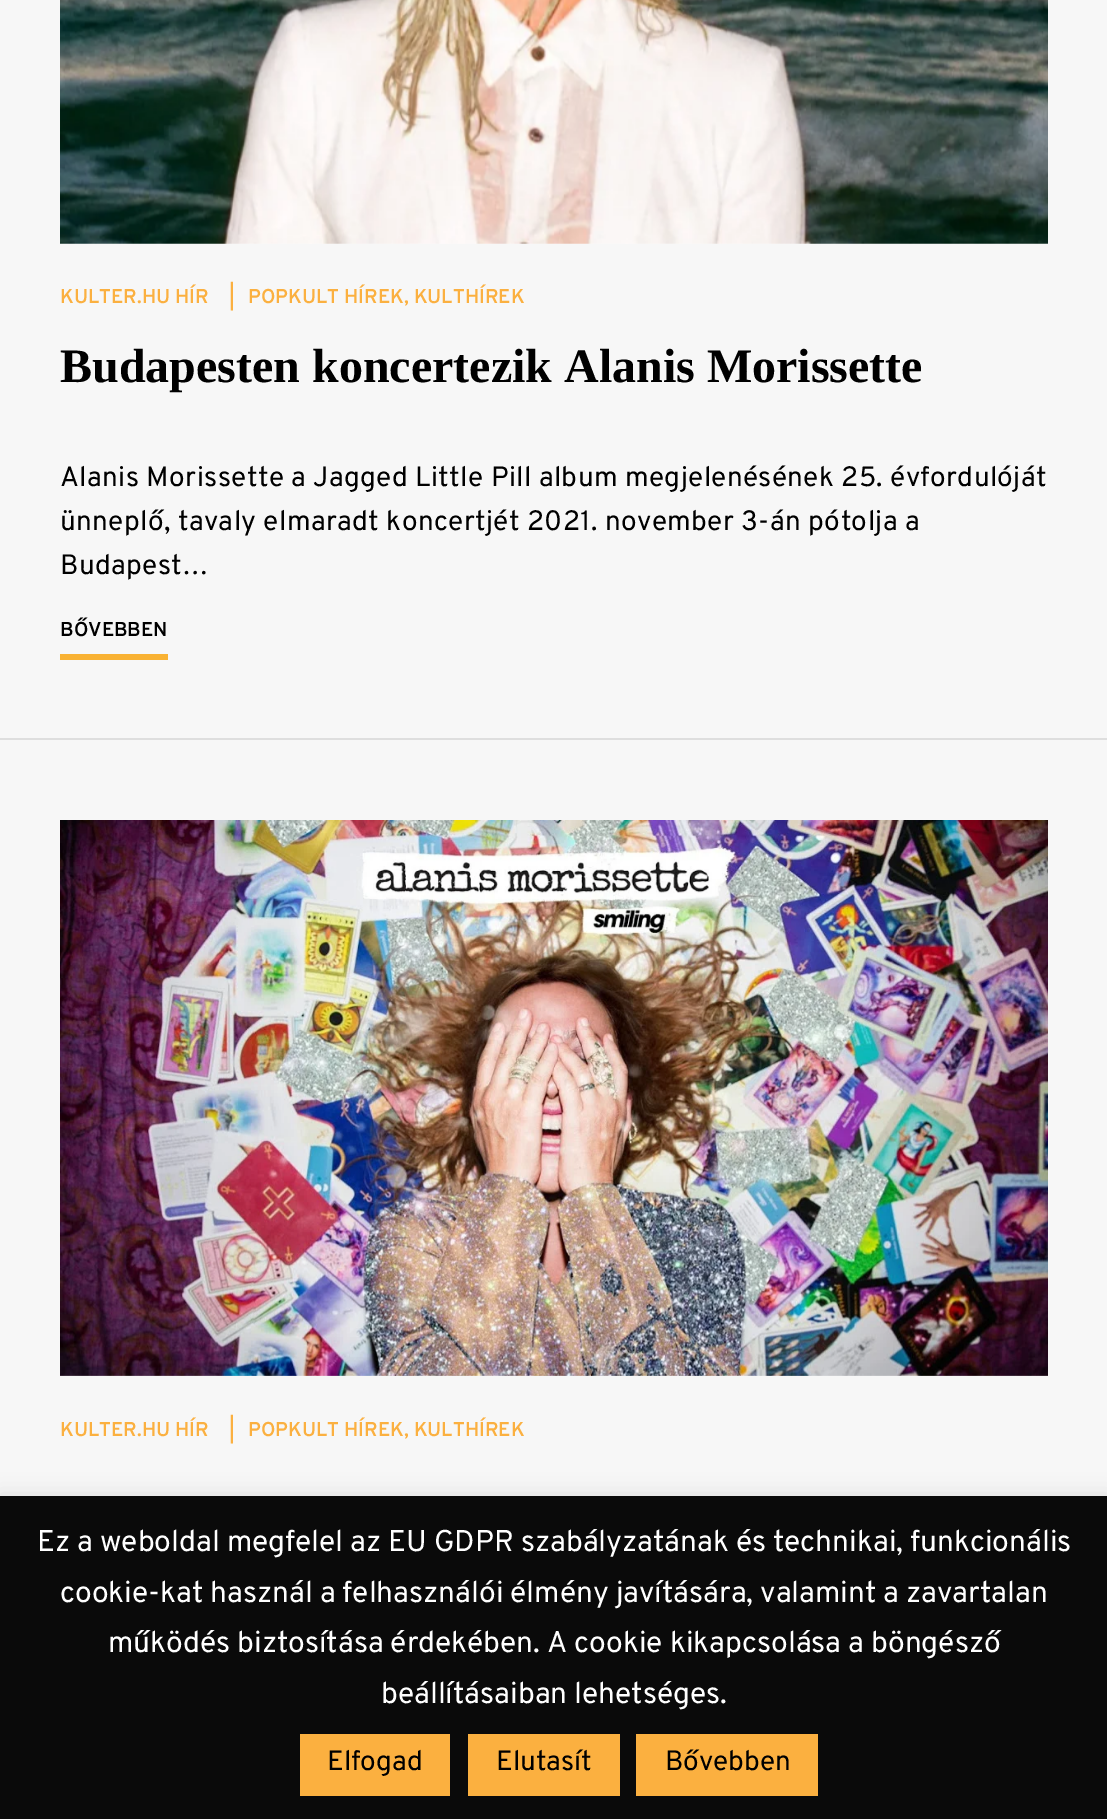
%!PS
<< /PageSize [1107 1819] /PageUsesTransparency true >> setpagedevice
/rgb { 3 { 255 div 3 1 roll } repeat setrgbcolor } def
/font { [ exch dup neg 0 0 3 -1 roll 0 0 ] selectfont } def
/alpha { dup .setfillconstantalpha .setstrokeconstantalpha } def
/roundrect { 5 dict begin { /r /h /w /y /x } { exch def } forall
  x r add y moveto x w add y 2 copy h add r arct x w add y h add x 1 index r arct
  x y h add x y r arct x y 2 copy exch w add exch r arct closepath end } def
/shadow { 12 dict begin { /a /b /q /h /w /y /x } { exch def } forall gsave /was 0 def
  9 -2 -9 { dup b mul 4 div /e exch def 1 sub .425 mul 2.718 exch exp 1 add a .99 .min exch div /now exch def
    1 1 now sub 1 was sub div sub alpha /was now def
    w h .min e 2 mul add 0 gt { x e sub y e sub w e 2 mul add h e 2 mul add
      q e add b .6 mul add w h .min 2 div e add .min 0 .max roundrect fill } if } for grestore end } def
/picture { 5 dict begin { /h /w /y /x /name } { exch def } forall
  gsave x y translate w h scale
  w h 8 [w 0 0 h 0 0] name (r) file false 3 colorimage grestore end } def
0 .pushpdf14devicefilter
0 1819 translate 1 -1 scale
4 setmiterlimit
247 247 247 rgb
0 0 1107 1819 rectfill
(img/1.rgb) 60 0 988 244 picture
249 178 51 rgb
60 654 108 6 rectfill
222 222 222 rgb
0 738 1107 2 rectfill
(img/2.rgb) 60 820 988 556 picture
172 171 171 rgb
0 1494 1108 324 0 10 0.3 shadow
[
  [0 1496 1107 323 10 10 10]
  [300 1734 150 62 251 176 64]
  [468 1734 152 62 251 176 64]
  [636 1734 182 62 251 176 64]
] { aload pop rgb rectfill } forall
/Overpass-SemiBold 20 font
[
  [(KULTER.HU HÍR) 60 303]
  [(|) 229 303]
  [(POPKULT HÍREK, KULTHÍREK) 248 303]
] { aload pop moveto show } forall
/LiberationSerif-Bold 48 font
0 0 0 rgb
60 382 moveto (Budapesten koncertezik Alanis Morissette) show
/Overpass-Regular 28 font
60 486 moveto 0.4 0 (Alanis Morissette a Jagged Little Pill album megjelenésének 25. évfordulóját) ashow
60 530 moveto 0.4 0 (ünneplő, tavaly elmaradt koncertjét 2021. november 3-án pótolja a) ashow
60 574 moveto 0.4 0 (Budapest…) ashow
/Overpass-SemiBold 20 font
60 636 moveto (BŐVEBBEN) show
251 176 64 rgb
[
  [(KULTER.HU HÍR) 60 1436]
  [(|) 229 1436]
  [(POPKULT HÍREK, KULTHÍREK) 248 1436]
] { aload pop moveto show } forall
/Overpass-Regular 30 font
255 255 255 rgb
[
  [(Ez a weboldal megfelel az EU GDPR szabályzatának és technikai, funkcionális) 37 1551]
  [(cookie-kat használ a felhasználói élmény javítására, valamint a zavartalan) 60 1602]
  [(működés biztosítása érdekében. A cookie kikapcsolása a böngésző) 108 1652]
  [(beállításaiban lehetséges.) 381 1703]
] { aload pop moveto show } forall
/Overpass-Regular 28 font
0 0 0 rgb
[
  [(Elfogad) 327 1770]
  [(Elutasít) 496 1770]
  [(Bővebben) 665 1770]
] { aload pop moveto show } forall
.poppdf14devicefilter showpage
